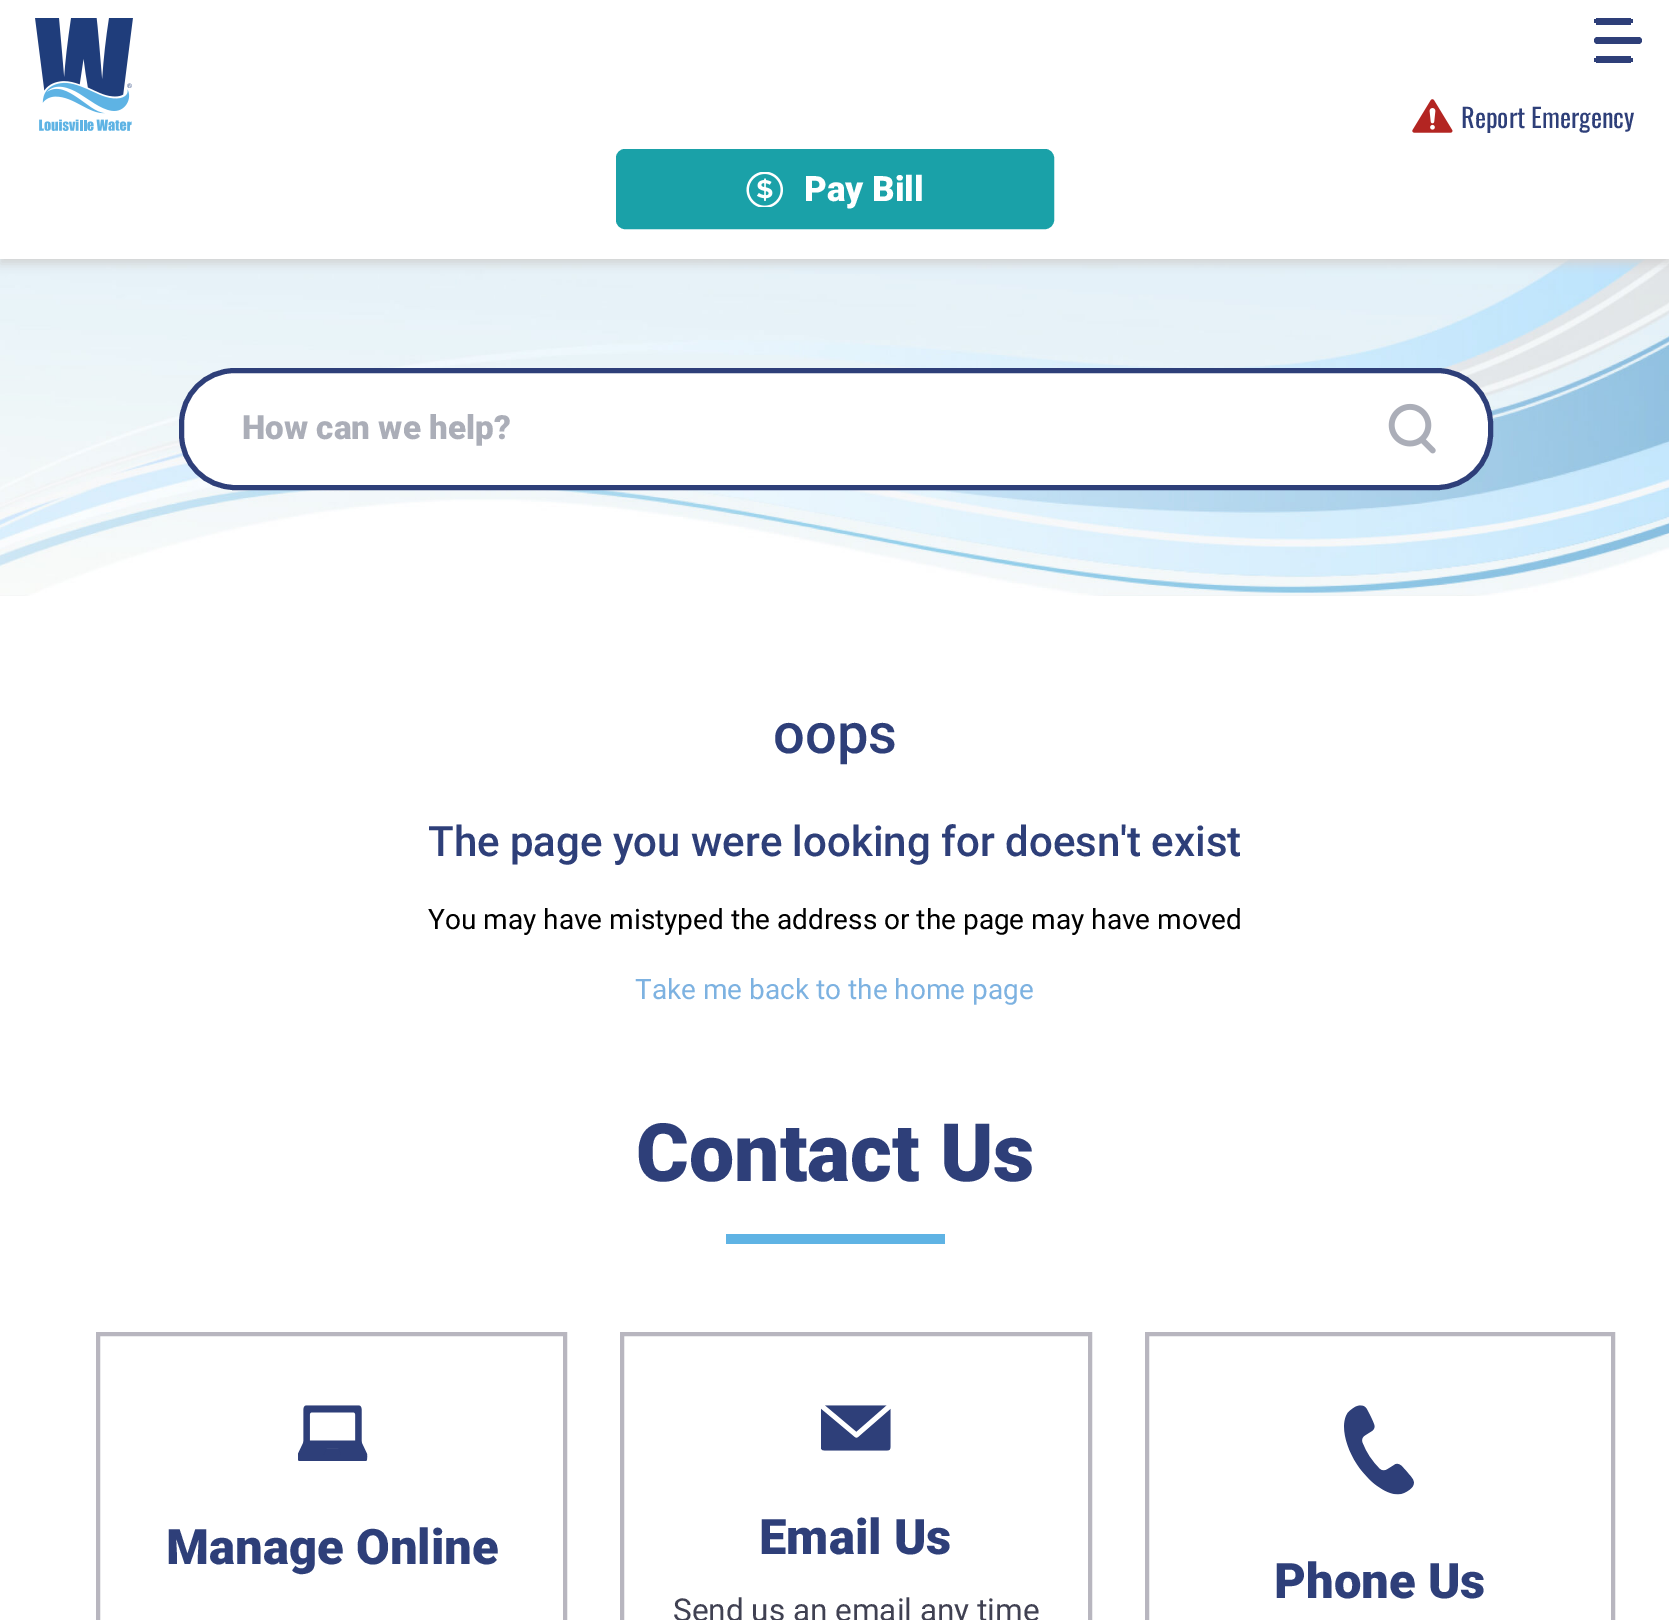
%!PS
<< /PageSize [1669 1620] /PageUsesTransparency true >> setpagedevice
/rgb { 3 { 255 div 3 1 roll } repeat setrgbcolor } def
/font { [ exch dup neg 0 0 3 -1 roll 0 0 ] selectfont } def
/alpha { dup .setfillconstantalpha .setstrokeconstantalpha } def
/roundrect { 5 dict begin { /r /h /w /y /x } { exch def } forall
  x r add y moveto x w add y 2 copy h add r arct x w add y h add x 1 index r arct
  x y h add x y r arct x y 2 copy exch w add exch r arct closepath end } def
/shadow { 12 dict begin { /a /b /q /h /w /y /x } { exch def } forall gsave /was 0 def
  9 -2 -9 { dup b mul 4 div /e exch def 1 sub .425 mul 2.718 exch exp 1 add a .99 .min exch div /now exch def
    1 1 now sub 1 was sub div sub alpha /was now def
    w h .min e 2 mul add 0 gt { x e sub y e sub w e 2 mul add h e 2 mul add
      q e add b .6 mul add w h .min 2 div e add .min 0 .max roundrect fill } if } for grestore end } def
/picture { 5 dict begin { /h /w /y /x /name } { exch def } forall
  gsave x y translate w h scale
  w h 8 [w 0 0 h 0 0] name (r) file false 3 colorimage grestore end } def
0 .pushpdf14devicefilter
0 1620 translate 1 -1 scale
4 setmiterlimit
255 255 255 rgb
0 0 1669 1620 rectfill
(img/4.rgb) 0 259 1669 337 picture
gsave
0 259 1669 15 rectclip
211 211 211 rgb
0 5 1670 259 0 5 1 shadow
grestore
(img/1.rgb) 35 18 98 113 picture
[
  [1596 18 35 7 46 63 121]
  [1626 19 7 4 46 63 121]
  [1594 19 7 4 46 63 121]
] { aload pop rgb rectfill } forall
1594 37 48 7 3.5 roundrect fill
[
  [1626 58 7 4 46 63 121]
  [1596 56 35 7 46 63 121]
  [1594 58 7 4 46 63 121]
] { aload pop rgb rectfill } forall
(img/2.rgb) 1412 99 41 34 picture
26 161 168 rgb
618 151 434 76 7 roundrect gsave fill grestore
4 setlinewidth
stroke
(img/3.rgb) 746 172 37 35 picture
255 255 255 rgb
181.5 370.5 1309 117 53.5 roundrect gsave fill grestore
46 63 121 rgb
5 setlinewidth
stroke
(img/5.rgb) 1388 403 48 51 picture
95 179 228 rgb
726 1234 219 10 rectfill
184 182 191 rgb
4 setlinewidth
98 1334 467 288 rectstroke
(img/6.rgb) 298 1405 70 56 picture
622 1334 468 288 rectstroke
(img/7.rgb) 821 1405 70 46 picture
1147 1334 466 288 rectstroke
(img/8.rgb) 1344 1405 70 90 picture
/Oswald-Regular 26.25 font
46 63 121 rgb
1461 128 moveto (Report Emergency) show
/Roboto-Black 35 font
255 255 255 rgb
804 201 moveto (Pay Bill) show
/Roboto-Black 33.25 font
171 174 184 rgb
242 439 moveto (How can we help?) show
/Roboto-Medium 56 font
46 63 121 rgb
773 753 moveto (oops) show
/Roboto-Medium 42 font
428 856 moveto (The page you were looking for doesn't exist) show
/Roboto-Regular 28 font
0 0 0 rgb
428 929 moveto (You may have mistyped the address or the page may have moved) show
125 178 225 rgb
635 999 moveto (Take me back to the home page) show
/Roboto-Black 80.5 font
46 63 121 rgb
636 1181 moveto (Contact Us) show
/Roboto-Black 49 font
166 1564 moveto (Manage Online) show
759 1554 moveto (Email Us) show
/Roboto-Regular 31.5 font
64 65 82 rgb
673 1621 moveto (Send us an email any time) show
/Roboto-Black 49 font
46 63 121 rgb
1274 1598 moveto (Phone Us) show
.poppdf14devicefilter showpage
